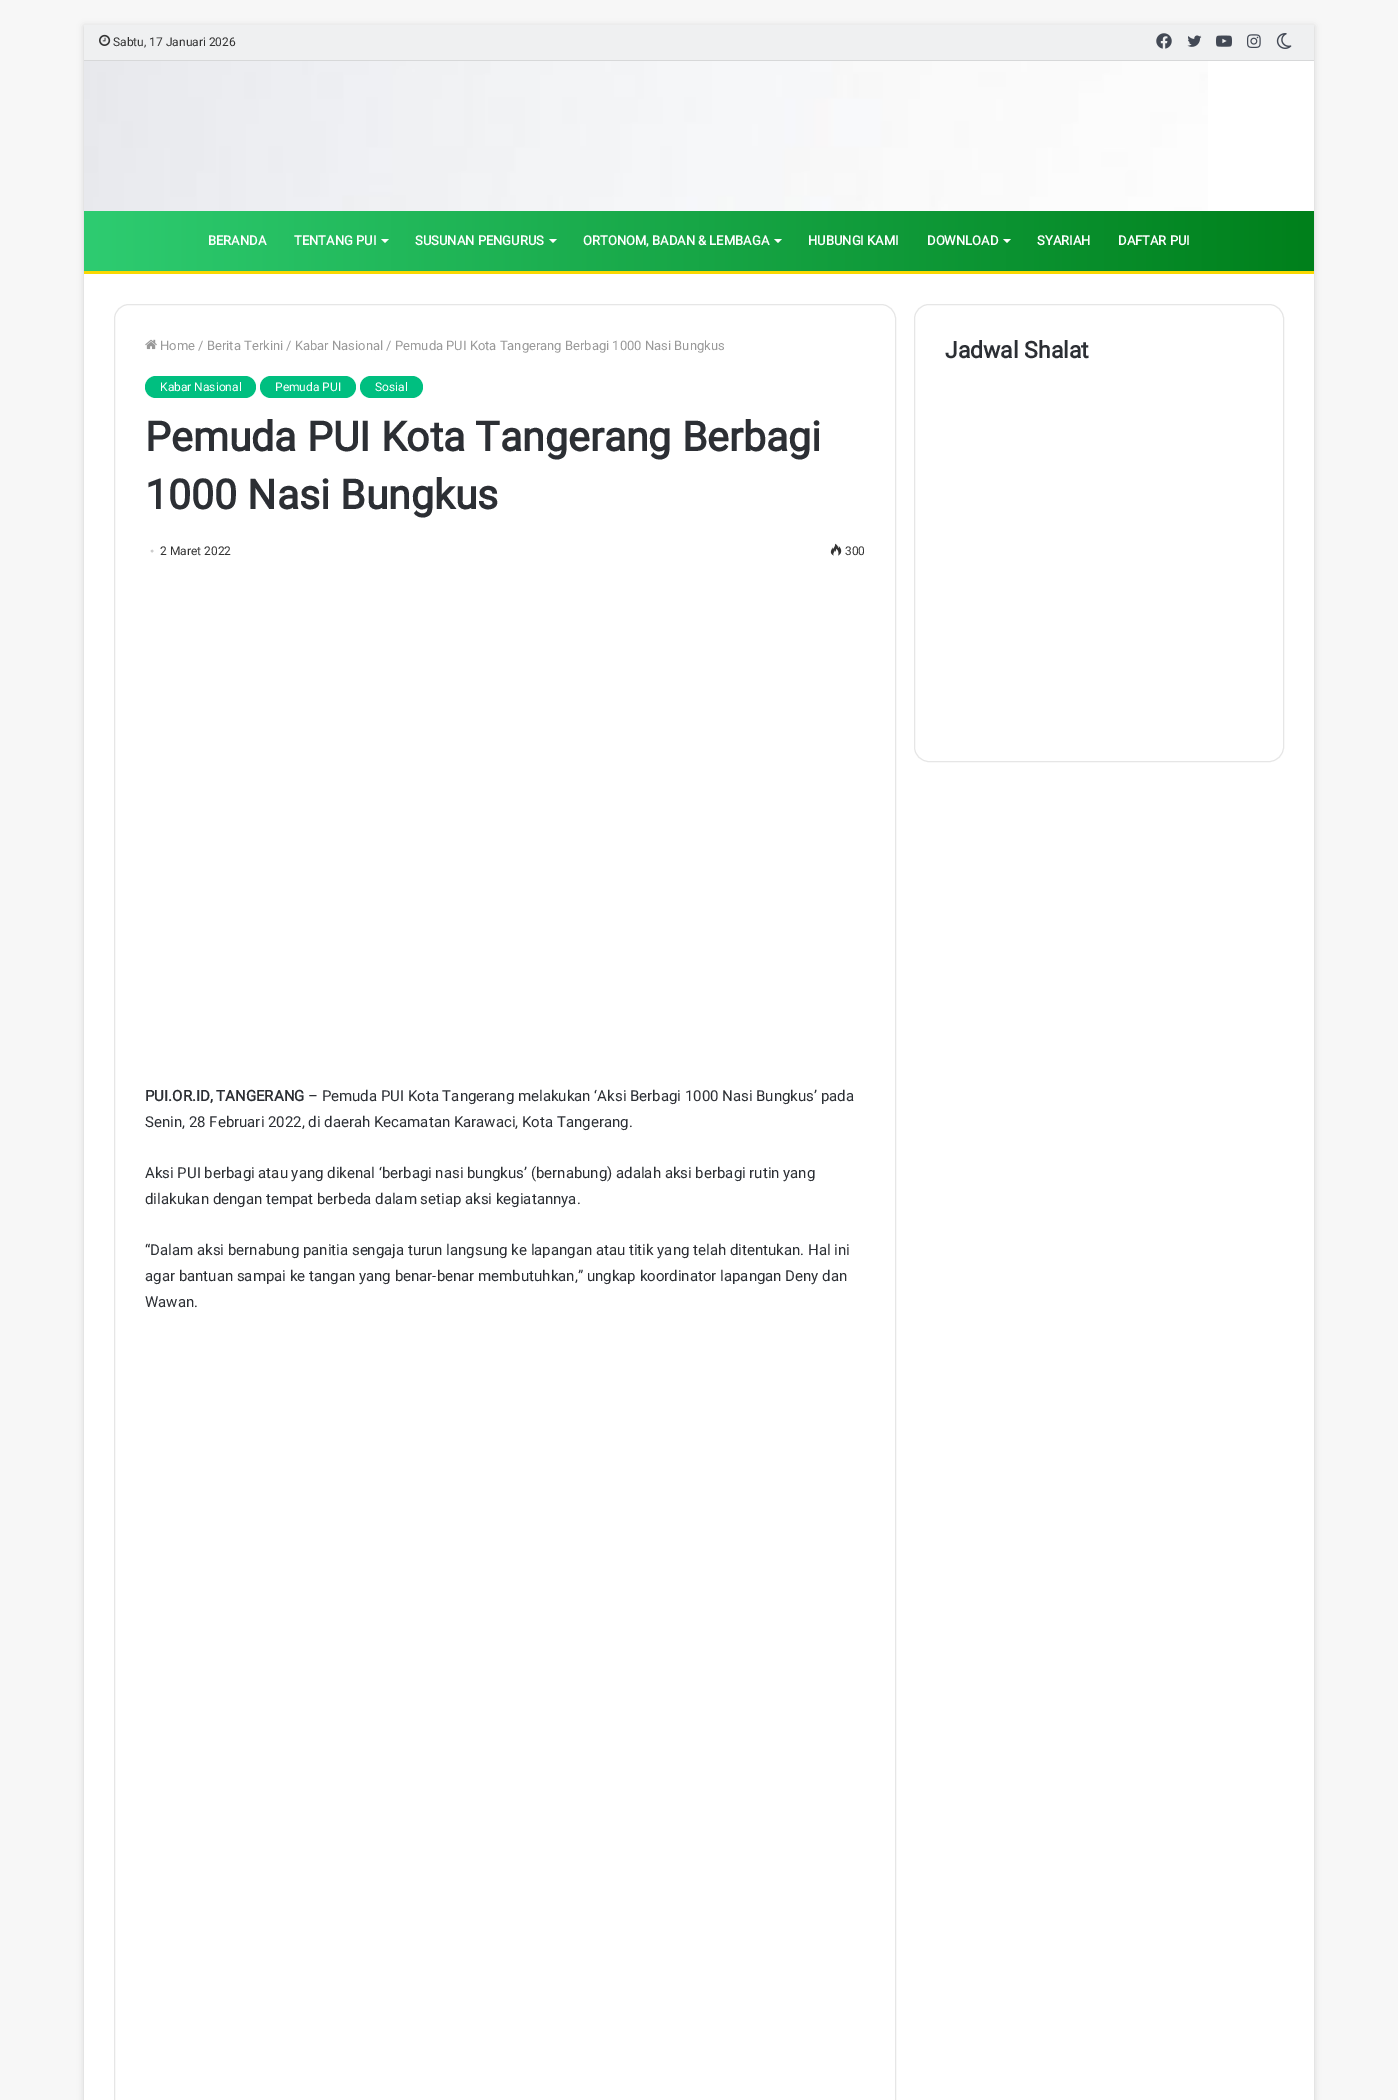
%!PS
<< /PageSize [1398 2100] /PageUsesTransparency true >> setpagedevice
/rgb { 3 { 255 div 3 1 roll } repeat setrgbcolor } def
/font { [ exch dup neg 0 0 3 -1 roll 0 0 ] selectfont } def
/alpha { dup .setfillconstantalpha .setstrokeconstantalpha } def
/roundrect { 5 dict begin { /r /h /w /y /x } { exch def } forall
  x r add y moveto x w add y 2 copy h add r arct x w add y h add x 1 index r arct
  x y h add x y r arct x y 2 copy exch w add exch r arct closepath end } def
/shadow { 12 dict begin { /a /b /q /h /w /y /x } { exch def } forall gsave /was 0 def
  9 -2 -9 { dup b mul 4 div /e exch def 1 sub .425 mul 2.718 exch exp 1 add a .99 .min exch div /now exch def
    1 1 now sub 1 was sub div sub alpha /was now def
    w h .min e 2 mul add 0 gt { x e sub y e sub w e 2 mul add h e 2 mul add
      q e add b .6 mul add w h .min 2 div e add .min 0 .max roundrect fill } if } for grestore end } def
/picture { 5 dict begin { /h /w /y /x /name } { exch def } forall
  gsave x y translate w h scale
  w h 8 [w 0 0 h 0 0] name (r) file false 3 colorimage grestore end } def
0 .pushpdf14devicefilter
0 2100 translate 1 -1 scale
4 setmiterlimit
247 247 247 rgb
0 0 1398 2100 rectfill
171 171 171 rgb
84 26 1230 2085 0 3.5 0.5 shadow
255 255 255 rgb
84 61 1230 2039 rectfill
(img/1.rgb) 84 61 1124 150 picture
239 240 241 rgb
84 25 1230 35 rectfill
215 216 217 rgb
84 60 1230 1 rectfill
(img/2.rgb) 99 34 12 12 picture
(img/3.rgb) 1156 33 16 16 picture
(img/4.rgb) 1187 35 15 12 picture
(img/5.rgb) 1216 35 16 12 picture
(img/6.rgb) 1247 34 14 14 picture
(img/7.rgb) 1276 33 16 16 picture
gsave 84 211 moveto 1314 211 lineto 1314 271 lineto 84 271 lineto closepath clip newpath
<< /ShadingType 2 /ColorSpace /DeviceRGB /Coords [84 241 1314 241] /Extend [true true] /Function << /FunctionType 2 /Domain [0 1] /C0 [0.18 0.8 0.443] /C1 [0 0.502 0.106] /N 1 >> >> shfill grestore
250 216 2 rgb
84 271 1230 3 rectfill
255 255 255 rgb
381 239 moveto 389 239 lineto 385 243 lineto closepath fill
549 239 moveto 557 239 lineto 553 243 lineto closepath fill
774 239 moveto 782 239 lineto 778 243 lineto closepath fill
1003 239 moveto 1011 239 lineto 1007 243 lineto closepath fill
230 230 230 rgb
114.5 304.5 781 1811 14.5 roundrect stroke
(img/8.rgb) 145 339 12 11 picture
0 191 128 rgb
145 376 111 22 11 roundrect fill
260 376 96 22 11 roundrect fill
360 376 63 22 11 roundrect fill
(img/9.rgb) 830 543 12 13 picture
230 230 230 rgb
914.5 304.5 369 457 14.5 roundrect stroke
/Roboto-Regular 12 font
51 51 51 rgb
113 46 moveto (Sabtu, 17 Januari 2026) show
/Roboto-Bold 13 font
255 255 255 rgb
[
  [(BERANDA) 208 245]
  [(TENTANG PUI) 294 245]
  [(SUSUNAN PENGURUS) 415 245]
  [(ORTONOM, BADAN & LEMBAGA) 583 245]
  [(HUBUNGI KAMI) 808 245]
  [(DOWNLOAD) 927 245]
  [(SYARIAH) 1037 245]
  [(DAFTAR PUI) 1118 245]
] { aload pop moveto show } forall
/Roboto-Regular 13 font
153 153 153 rgb
160 350 moveto (Home / Berita Terkini / Kabar Nasional / Pemuda PUI Kota Tangerang Berbagi 1000 Nasi Bungkus) show
/Roboto-Regular 12 font
255 255 255 rgb
[
  [(Kabar Nasional) 160 391]
  [(Pemuda PUI) 275 391]
  [(Sosial) 375 391]
] { aload pop moveto show } forall
/Roboto-Bold 41 font
44 47 52 rgb
145 451 moveto (Pemuda PUI Kota Tangerang Berbagi) show
145 509 moveto (1000 Nasi Bungkus) show
/LiberationSerif-Regular 12 font
204 204 204 rgb
150 555 moveto (•) show
/Roboto-Regular 12 font
51 51 51 rgb
160 555 moveto (2 Maret 2022) show
845 555 moveto (300) show
/Roboto-Bold 15 font
44 47 52 rgb
145 1101 moveto (PUI.OR.ID, TANGERANG) show
/Roboto-Regular 15 font
[
  [(– Pemuda PUI Kota Tangerang melakukan ‘Aksi Berbagi 1000 Nasi Bungkus’ pada) 308 1101]
  [(Senin, 28 Februari 2022, di daerah Kecamatan Karawaci, Kota Tangerang.) 145 1127]
  [(Aksi PUI berbagi atau yang dikenal ‘berbagi nasi bungkus’ \(bernabung\) adalah aksi berbagi rutin yang) 145 1178]
  [(dilakukan dengan tempat berbeda dalam setiap aksi kegiatannya.) 145 1204]
  [(“Dalam aksi bernabung panitia sengaja turun langsung ke lapangan atau titik yang telah ditentukan. Hal ini) 145 1255]
  [(agar bantuan sampai ke tangan yang benar-benar membutuhkan,” ungkap koordinator lapangan Deny dan) 145 1281]
  [(Wawan.) 145 1307]
] { aload pop moveto show } forall
/Roboto-Bold 23 font
945 358 moveto (Jadwal Shalat) show
.poppdf14devicefilter showpage
